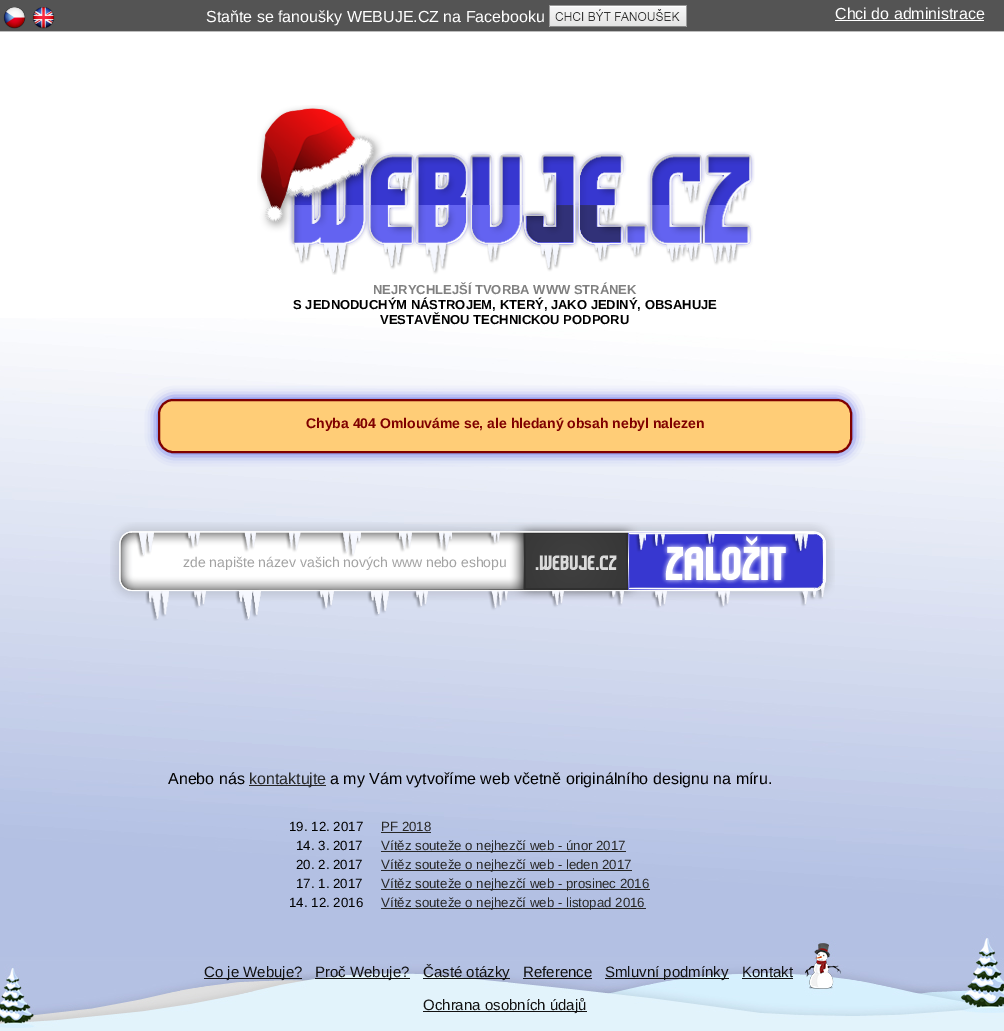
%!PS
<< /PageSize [1004 1031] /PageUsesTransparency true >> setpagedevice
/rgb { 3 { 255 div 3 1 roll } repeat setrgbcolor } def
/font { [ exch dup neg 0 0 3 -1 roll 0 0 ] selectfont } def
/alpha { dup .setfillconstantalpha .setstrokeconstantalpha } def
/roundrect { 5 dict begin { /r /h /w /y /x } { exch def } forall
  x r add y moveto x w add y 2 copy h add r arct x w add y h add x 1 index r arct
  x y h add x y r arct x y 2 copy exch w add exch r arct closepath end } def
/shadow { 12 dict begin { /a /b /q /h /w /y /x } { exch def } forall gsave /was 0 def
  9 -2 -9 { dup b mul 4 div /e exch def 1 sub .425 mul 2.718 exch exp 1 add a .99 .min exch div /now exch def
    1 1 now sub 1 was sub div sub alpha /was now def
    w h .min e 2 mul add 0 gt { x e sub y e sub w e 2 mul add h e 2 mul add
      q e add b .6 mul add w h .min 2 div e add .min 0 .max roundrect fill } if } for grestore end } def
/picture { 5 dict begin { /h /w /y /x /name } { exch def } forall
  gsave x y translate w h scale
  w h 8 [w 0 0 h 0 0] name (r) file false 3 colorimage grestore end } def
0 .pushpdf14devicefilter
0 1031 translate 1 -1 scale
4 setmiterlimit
255 255 255 rgb
0 0 1004 1031 rectfill
84 84 84 rgb
0 0 1004 31 rectfill
189 189 189 rgb
0 31 1004 1 rectfill
(img/1.rgb) 3 7 23 22 picture
(img/2.rgb) 32 7 23 22 picture
(img/3.rgb) 549 5 138 22 picture
255 255 255 rgb
835 20 149 1 rectfill
(img/4.rgb) 0 318 1004 713 picture
(img/5.rgb) 257 105 498 170 picture
59 70 227 rgb
158 399 694 54 15 6 1 shadow
255 205 119 rgb
159 400 692 52 14 roundrect gsave fill grestore
127 0 0 rgb
2 setlinewidth
stroke
(img/6.rgb) 110 522 725 99 picture
[
  [249 785 77 1 39 39 39]
  [381 832 50 1 39 39 39]
  [381 851 245 1 39 39 39]
  [381 870 251 1 39 39 39]
  [381 889 269 1 39 39 39]
  [381 908 265 1 39 39 39]
  [204 978 98 1 17 17 17]
  [315 978 95 1 17 17 17]
  [423 978 87 1 17 17 17]
  [523 978 69 1 17 17 17]
  [605 978 124 1 17 17 17]
  [742 978 51 1 17 17 17]
  [423 1011 164 1 17 17 17]
] { aload pop rgb rectfill } forall
/LiberationSans-Regular 16 font
255 255 255 rgb
206 22 moveto (Staňte se fanoušky WEBUJE.CZ na Facebooku) show
835 19 moveto (Chci do administrace) show
/LiberationSans-Bold 13 font
128 128 128 rgb
373 294 moveto (NEJRYCHLEJŠÍ TVORBA WWW STRÁNEK) show
0 0 0 rgb
293 309 moveto (S JEDNODUCHÝM NÁSTROJEM, KTERÝ, JAKO JEDINÝ, OBSAHUJE) show
380 324 moveto (VESTAVĚNOU TECHNICKOU PODPORU) show
/LiberationSans-Bold 14 font
127 0 0 rgb
306 428 moveto (Chyba 404 Omlouváme se, ale hledaný obsah nebyl nalezen) show
/LiberationSans-Regular 14 font
162 162 162 rgb
183 567 moveto (zde napište název vašich nových www nebo eshopu) show
/LiberationSans-Regular 16 font
0 0 0 rgb
168 784 moveto (Anebo nás) show
39 39 39 rgb
249 784 moveto (kontaktujte) show
0 0 0 rgb
330 784 moveto (a my Vám vytvoříme web včetně originálního designu na míru.) show
/LiberationSans-Regular 13.3 font
289 831 moveto (19. 12. 2017) show
39 39 39 rgb
381 831 moveto (PF 2018) show
0 0 0 rgb
296 850 moveto (14. 3. 2017) show
39 39 39 rgb
381 850 moveto (Vítěz souteže o nejhezčí web - únor 2017) show
0 0 0 rgb
296 869 moveto (20. 2. 2017) show
39 39 39 rgb
381 869 moveto (Vítěz souteže o nejhezčí web - leden 2017) show
0 0 0 rgb
296 888 moveto (17. 1. 2017) show
39 39 39 rgb
381 888 moveto (Vítěz souteže o nejhezčí web - prosinec 2016) show
0 0 0 rgb
289 907 moveto (14. 12. 2016) show
39 39 39 rgb
381 907 moveto (Vítěz souteže o nejhezčí web - listopad 2016) show
/LiberationSans-Regular 15 font
17 17 17 rgb
[
  [(Co je Webuje?) 204 977]
  [(Proč Webuje?) 315 977]
  [(Časté otázky) 423 977]
  [(Reference) 523 977]
  [(Smluvní podmínky) 605 977]
  [(Kontakt) 742 977]
  [(Ochrana osobních údajů) 423 1010]
] { aload pop moveto show } forall
.poppdf14devicefilter showpage
